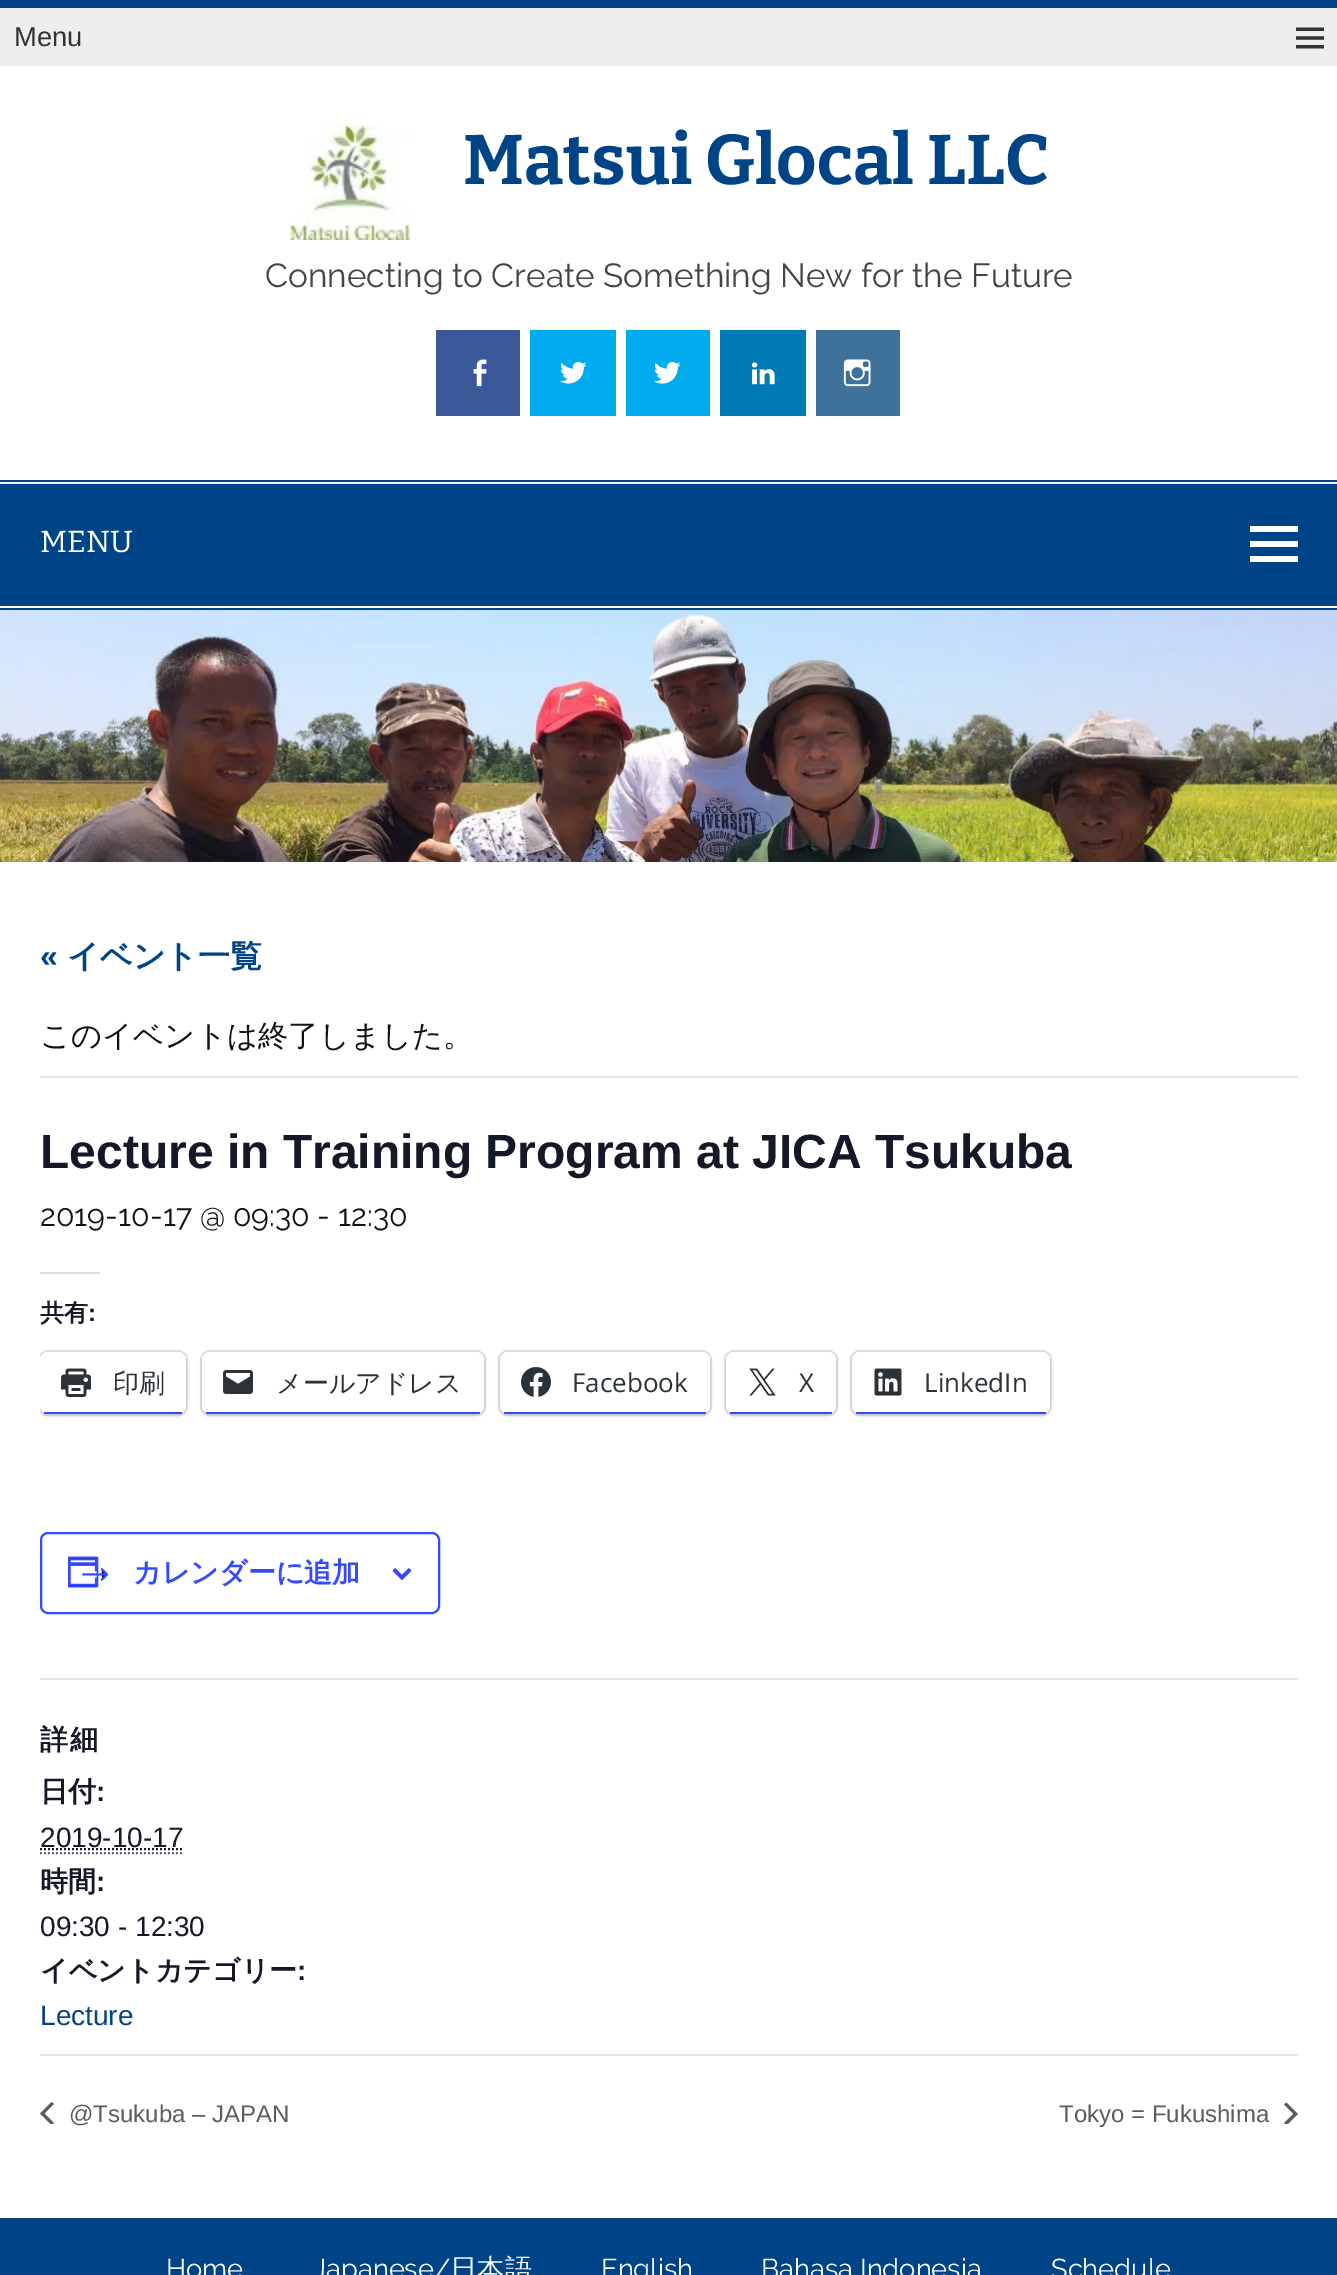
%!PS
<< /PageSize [1337 2275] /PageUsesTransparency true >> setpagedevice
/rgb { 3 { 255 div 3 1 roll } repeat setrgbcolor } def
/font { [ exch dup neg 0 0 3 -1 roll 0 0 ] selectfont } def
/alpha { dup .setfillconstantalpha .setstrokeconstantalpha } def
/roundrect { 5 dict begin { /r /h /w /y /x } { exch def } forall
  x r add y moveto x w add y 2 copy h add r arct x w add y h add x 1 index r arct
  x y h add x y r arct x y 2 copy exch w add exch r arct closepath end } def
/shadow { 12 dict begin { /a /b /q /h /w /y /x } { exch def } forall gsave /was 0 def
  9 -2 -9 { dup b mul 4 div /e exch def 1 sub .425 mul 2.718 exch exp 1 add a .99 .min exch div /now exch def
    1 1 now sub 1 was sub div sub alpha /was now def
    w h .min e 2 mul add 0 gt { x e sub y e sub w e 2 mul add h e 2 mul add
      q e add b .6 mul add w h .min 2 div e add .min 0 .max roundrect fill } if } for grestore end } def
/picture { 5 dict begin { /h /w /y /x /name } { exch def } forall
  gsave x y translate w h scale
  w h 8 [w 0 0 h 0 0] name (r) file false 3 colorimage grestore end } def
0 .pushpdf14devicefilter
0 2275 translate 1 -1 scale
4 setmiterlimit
255 255 255 rgb
0 0 1337 2275 rectfill
0 68 136 rgb
0 0 1337 8 rectfill
238 238 238 rgb
0 8 1337 58 rectfill
(img/1.rgb) 1296 27 28 22 picture
(img/2.rgb) 290 126 120 114 picture
59 89 152 rgb
436 330 84 86 rectfill
(img/3.rgb) 473 359 14 28 picture
0 172 237 rgb
530 330 86 86 rectfill
(img/4.rgb) 560 361 27 23 picture
626 330 84 86 rectfill
(img/4.rgb) 654 361 27 23 picture
0 123 182 rgb
720 330 86 86 rectfill
(img/5.rgb) 751 362 24 23 picture
63 114 155 rgb
816 330 84 86 rectfill
(img/6.rgb) 843 359 28 28 picture
[
  [0 480 1337 2 0 68 136]
  [0 608 1337 2 0 68 136]
  [0 484 1337 122 0 68 136]
] { aload pop rgb rectfill } forall
255 255 255 rgb
1250 562 moveto 1250 556 lineto 1298 556 lineto 1298 562 lineto closepath 1250 526 moveto 1298 526 lineto 1298 532 lineto 1250 532 lineto closepath 1250 547 moveto 1250 541 lineto 1298 541 lineto 1298 547 lineto closepath fill
(img/7.rgb) 0 610 1337 252 picture
228 228 228 rgb
40 1076 1258 2 rectfill
220 220 222 rgb
40 1272 60 2 rectfill
gsave
40 1272 1258 782 rectclip
224 224 224 rgb
2 setlinewidth
39 1351 148 64 9 roundrect stroke
grestore
gsave
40 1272 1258 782 rectclip
0 0 0 rgb
40 1354 146 62 8 2 0.12 shadow
grestore
255 255 255 rgb
40 1352 146 62 8 roundrect fill
51 74 255 rgb
44 1412 138 2 rectfill
(img/8.rgb) 61 1368 30 29 picture
224 224 224 rgb
2 setlinewidth
201 1351 284 64 9 roundrect stroke
0 0 0 rgb
202 1354 282 62 8 2 0.12 shadow
255 255 255 rgb
202 1352 282 62 8 roundrect fill
51 74 255 rgb
206 1412 274 2 rectfill
(img/9.rgb) 223 1370 30 24 picture
224 224 224 rgb
499 1351 212 64 9 roundrect stroke
0 0 0 rgb
500 1354 210 62 8 2 0.12 shadow
255 255 255 rgb
500 1352 210 62 8 roundrect fill
51 74 255 rgb
504 1412 202 2 rectfill
(img/10.rgb) 521 1367 30 30 picture
224 224 224 rgb
725 1351 112 64 9 roundrect stroke
0 0 0 rgb
726 1354 110 62 8 2 0.12 shadow
255 255 255 rgb
726 1352 110 62 8 roundrect fill
51 74 255 rgb
730 1412 102 2 rectfill
(img/11.rgb) 749 1368 27 28 picture
224 224 224 rgb
851 1351 200 64 9 roundrect stroke
0 0 0 rgb
852 1354 198 62 8 2 0.12 shadow
255 255 255 rgb
852 1352 198 62 8 roundrect fill
51 74 255 rgb
856 1412 190 2 rectfill
(img/12.rgb) 874 1368 28 28 picture
41 1533 398 80 7 roundrect stroke
(img/13.rgb) 68 1556 41 32 picture
(img/14.rgb) 392 1568 20 12 picture
228 228 228 rgb
40 1678 1258 2 rectfill
102 102 102 rgb
[2 2] 0 setdash
40 1853 moveto 184 1853 lineto stroke
20 24 39 rgb
40 1849 moveto 183 1849 lineto stroke
228 228 228 rgb
40 2054 1258 2 rectfill
gsave
40 2102 14 22 rectclip
93 93 93 rgb
54 2123 moveto 51.5 2125 lineto 40 2113.5 lineto 51.5 2102 lineto 54 2104 lineto 44.5 2113.5 lineto closepath fill
grestore
gsave
1284 2102 14 22 rectclip
93 93 93 rgb
1284 2104.5 moveto 1286.5 2102.5 lineto 1298 2114 lineto 1286.5 2125.5 lineto 1284 2123 lineto 1293.5 2114 lineto closepath fill
grestore
0 68 136 rgb
0 2218 1337 57 rectfill
/LiberationSans-Regular 27.25 font
51 51 51 rgb
14 46 moveto (Menu) show
/Bitter-Bold 70 font
0 68 136 rgb
463 184 moveto (Matsui Glocal LLC) show
/Raleway-Regular 33.4 font
68 68 68 rgb
265 287 moveto (Connecting to Create Something New for the Future) show
/Bitter-Regular 30.4 font
255 255 255 rgb
40 552 moveto (MENU) show
/LiberationSans-Bold 32 font
0 68 136 rgb
40 967 moveto («) show
/WenQuanYiZenHei-Bold 32 font
67 967 moveto (イベント一覧) show
/WenQuanYiZenHei-Medium 30.4 font
17 17 17 rgb
40 1046 moveto (このイベントは終了しました。) show
/LiberationSans-Bold 48 font
20 24 39 rgb
40 1168 moveto (Lecture in Training Program at JICA Tsukuba) show
/Raleway-Regular 30.4 font
17 17 17 rgb
40 1226 moveto (2019-10-17 @ 09:30 - 12:30) show
/WenQuanYiZenHei-Bold 24 font
20 24 39 rgb
40 1321 moveto (共有) show
/LiberationSans-Bold 24 font
88 1321 moveto (:) show
/WenQuanYiZenHei-Medium 26 font
44 51 56 rgb
113 1392 moveto (印刷) show
276 1392 moveto (メールアドレス) show
/OpenSans-Regular 26 font
[
  [(Facebook) 572 1392]
  [(X) 799 1392]
  [(LinkedIn) 924 1392]
] { aload pop moveto show } forall
/WenQuanYiZenHei-Bold 28 font
51 74 255 rgb
133 1582 moveto (カレンダーに追加) show
20 24 39 rgb
40 1749 moveto 2 0 (詳細) ashow
40 1801 moveto (日付) show
/LiberationSans-Bold 28 font
96 1801 moveto (:) show
/LiberationSans-Regular 28 font
40 1847 moveto (2019-10-17) show
/WenQuanYiZenHei-Bold 28 font
40 1891 moveto (時間) show
/LiberationSans-Bold 28 font
96 1891 moveto (:) show
/LiberationSans-Regular 28 font
40 1936 moveto (09:30 - 12:30) show
/WenQuanYiZenHei-Bold 28 font
40 1980 moveto (イベントカテゴリー) show
/LiberationSans-Bold 28 font
297 1980 moveto (:) show
/LiberationSans-Regular 28 font
0 68 136 rgb
40 2025 moveto (Lecture) show
/LiberationSans-Regular 24 font
93 93 93 rgb
69 2122 moveto (@Tsukuba – JAPAN) show
1059 2122 moveto (Tokyo = Fukushima) show
/Raleway-Regular 27.25 font
255 255 255 rgb
166 2278 moveto (Home) show
313 2278 moveto (Japanese/) show
/WenQuanYiZenHei-Medium 27.25 font
450 2278 moveto (日本語) show
/Raleway-Regular 27.25 font
[
  [(English) 601 2278]
  [(Bahasa Indonesia) 761 2278]
  [(Schedule) 1051 2278]
] { aload pop moveto show } forall
.poppdf14devicefilter showpage
